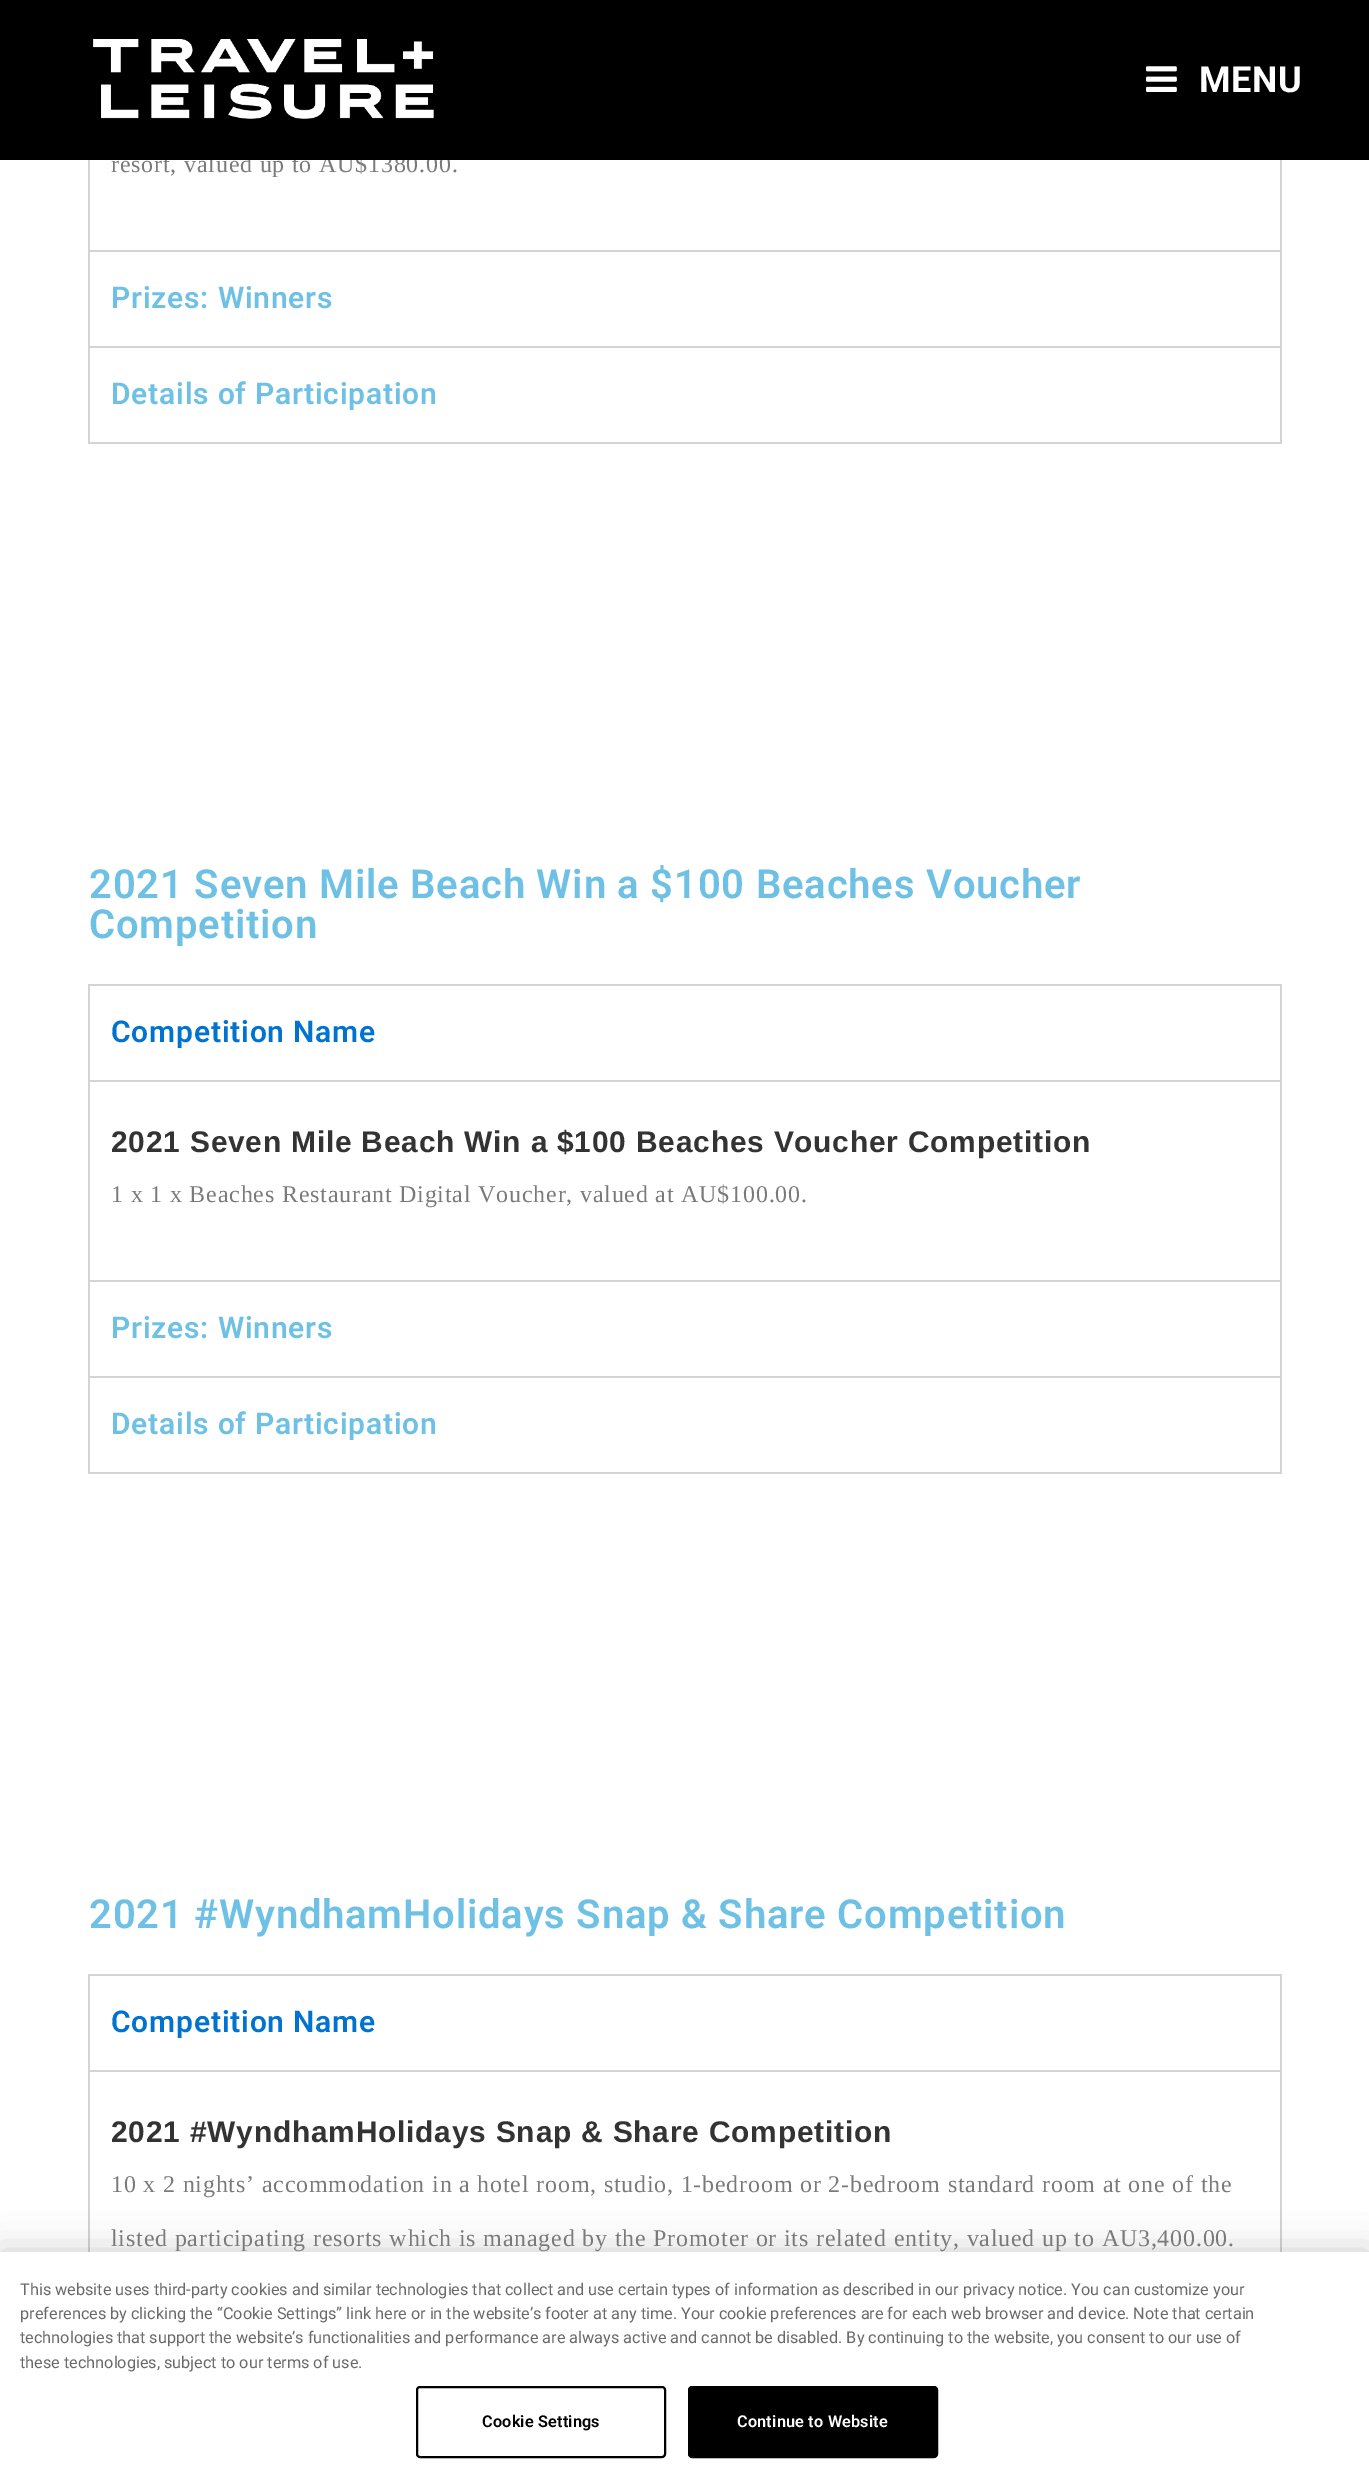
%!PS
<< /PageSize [1369 2477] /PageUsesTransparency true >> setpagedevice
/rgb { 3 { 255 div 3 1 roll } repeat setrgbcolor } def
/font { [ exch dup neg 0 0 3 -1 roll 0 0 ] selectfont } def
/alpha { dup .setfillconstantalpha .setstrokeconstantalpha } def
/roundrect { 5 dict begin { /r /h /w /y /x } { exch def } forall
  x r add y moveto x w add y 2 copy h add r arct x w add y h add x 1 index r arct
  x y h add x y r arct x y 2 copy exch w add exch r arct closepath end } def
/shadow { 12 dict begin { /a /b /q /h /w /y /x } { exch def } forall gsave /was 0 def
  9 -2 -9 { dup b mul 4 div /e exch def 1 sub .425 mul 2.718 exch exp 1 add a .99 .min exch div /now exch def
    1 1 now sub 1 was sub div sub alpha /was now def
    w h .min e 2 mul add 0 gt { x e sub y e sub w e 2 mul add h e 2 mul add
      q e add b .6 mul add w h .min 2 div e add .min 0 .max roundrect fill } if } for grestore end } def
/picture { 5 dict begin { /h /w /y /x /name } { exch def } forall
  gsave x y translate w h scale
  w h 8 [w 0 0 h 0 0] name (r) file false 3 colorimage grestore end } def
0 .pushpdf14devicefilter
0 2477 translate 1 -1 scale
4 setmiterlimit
255 255 255 rgb
0 0 1369 2477 rectfill
[
  [88 442 1194 2 212 212 212]
  [1280 160 2 90 212 212 212]
  [88 160 2 90 212 212 212]
  [88 250 1194 2 212 212 212]
  [1280 250 2 96 212 212 212]
  [88 250 2 96 212 212 212]
  [88 346 1194 2 212 212 212]
  [1280 346 2 96 212 212 212]
  [88 346 2 96 212 212 212]
  [88 1472 1194 2 212 212 212]
  [88 984 1194 2 212 212 212]
  [1280 984 2 96 212 212 212]
  [88 984 2 96 212 212 212]
  [88 1080 1194 2 212 212 212]
  [1280 1080 2 200 212 212 212]
  [88 1080 2 200 212 212 212]
  [88 1280 1194 2 212 212 212]
  [1280 1280 2 96 212 212 212]
  [88 1280 2 96 212 212 212]
  [88 1376 1194 2 212 212 212]
  [1280 1376 2 96 212 212 212]
  [88 1376 2 96 212 212 212]
  [88 1974 1194 2 212 212 212]
  [1280 1974 2 96 212 212 212]
  [88 1974 2 96 212 212 212]
  [88 2070 1194 2 212 212 212]
  [1280 2070 2 182 212 212 212]
  [88 2070 2 182 212 212 212]
] { aload pop rgb rectfill } forall
0 0 0 rgb
0 2252 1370 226 0 18 0.2 shadow
255 255 255 rgb
0 2252 1369 225 rectfill
0 0 0 rgb
2 setlinewidth
417 2387 248 70 3 roundrect stroke
689 2387 248 70 3 roundrect gsave fill grestore
stroke
/LiberationSerif-Regular 24 font
122 122 122 rgb
111 172 moveto 0.8 0 (resort, valued up to AU$1380.00.) ashow
0 0 0 rgb
0 0 1369 160 rectfill
/Roboto-Bold 36 font
255 255 255 rgb
1199 92 moveto 0.5 0 (MENU) ashow
(img/2.rgb) 1146 66 31 26 picture
(img/1.rgb) 93 39 341 80 picture
/Roboto-SemiBold 30 font
110 193 228 rgb
111 308 moveto 0.8 0 (Prizes: Winners) ashow
111 404 moveto 0.8 0 (Details of Participation) ashow
/Roboto-SemiBold 40 font
89 898 moveto 0.8 0 (2021 Seven Mile Beach Win a $100 Beaches Voucher) ashow
89 938 moveto 0.8 0 (Competition) ashow
/Roboto-SemiBold 30 font
0 114 207 rgb
111 1042 moveto 0.8 0 (Competition Name) ashow
/LiberationSans-Bold 29.9 font
51 51 51 rgb
111 1152 moveto 0.8 0 (2021 Seven Mile Beach Win a $100 Beaches Voucher Competition) ashow
/LiberationSerif-Regular 24 font
122 122 122 rgb
111 1202 moveto 0.8 0 (1 x 1 x Beaches Restaurant Digital Voucher, valued at AU$100.00.) ashow
/Roboto-SemiBold 30 font
110 193 228 rgb
111 1338 moveto 0.8 0 (Prizes: Winners) ashow
111 1434 moveto 0.8 0 (Details of Participation) ashow
/Roboto-SemiBold 40 font
89 1928 moveto 0.8 0 (2021 #WyndhamHolidays Snap & Share Competition) ashow
/Roboto-SemiBold 30 font
0 114 207 rgb
111 2032 moveto 0.8 0 (Competition Name) ashow
/LiberationSans-Bold 29.9 font
51 51 51 rgb
111 2142 moveto 0.8 0 (2021 #WyndhamHolidays Snap & Share Competition) ashow
/LiberationSerif-Regular 24 font
122 122 122 rgb
111 2192 moveto 0.8 0 (10 x 2 nights’ accommodation in a hotel room, studio, 1-bedroom or 2-bedroom standard room at one of the) ashow
111 2246 moveto 0.8 0 (listed participating resorts which is managed by the Promoter or its related entity, valued up to AU3,400.00.) ashow
/Roboto-Regular 16.25 font
105 105 105 rgb
[
  [(This website uses third-party cookies and similar technologies that collect and use certain types of information as described in our privacy notice. You can customize your) 20 2295]
  [(preferences by clicking the “Cookie Settings” link here or in the website’s footer at any time. Your cookie preferences are for each web browser and device. Note that certain) 20 2319]
  [(technologies that support the website’s functionalities and performance are always active and cannot be disabled. By continuing to the website, you consent to our use of) 20 2343]
  [(these technologies, subject to our terms of use.) 20 2368]
] { aload pop moveto show } forall
/Roboto-SemiBold 16.25 font
0 0 0 rgb
482 2427 moveto 0.2 0 (Cookie Settings) ashow
255 255 255 rgb
737 2427 moveto 0.2 0 (Continue to Website) ashow
.poppdf14devicefilter showpage
